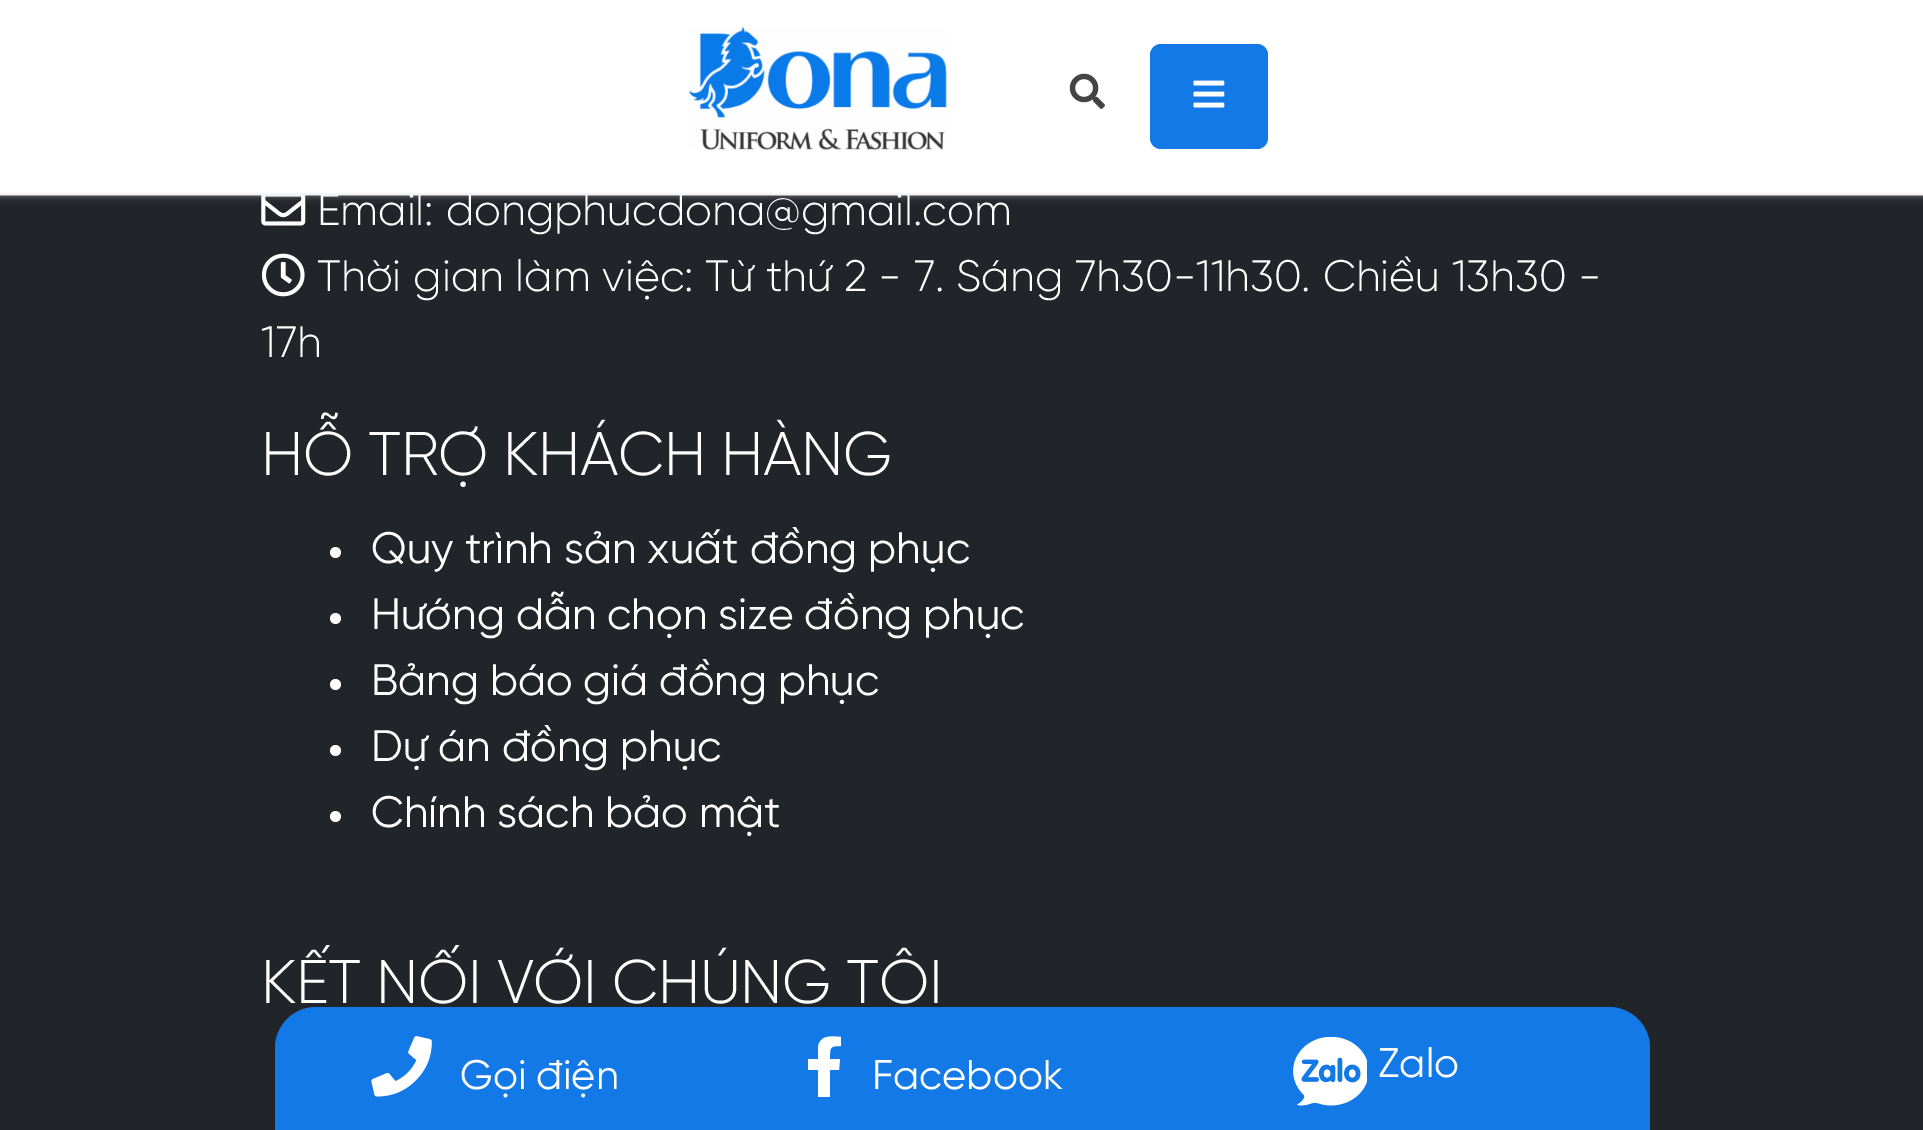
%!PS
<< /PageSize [1923 1130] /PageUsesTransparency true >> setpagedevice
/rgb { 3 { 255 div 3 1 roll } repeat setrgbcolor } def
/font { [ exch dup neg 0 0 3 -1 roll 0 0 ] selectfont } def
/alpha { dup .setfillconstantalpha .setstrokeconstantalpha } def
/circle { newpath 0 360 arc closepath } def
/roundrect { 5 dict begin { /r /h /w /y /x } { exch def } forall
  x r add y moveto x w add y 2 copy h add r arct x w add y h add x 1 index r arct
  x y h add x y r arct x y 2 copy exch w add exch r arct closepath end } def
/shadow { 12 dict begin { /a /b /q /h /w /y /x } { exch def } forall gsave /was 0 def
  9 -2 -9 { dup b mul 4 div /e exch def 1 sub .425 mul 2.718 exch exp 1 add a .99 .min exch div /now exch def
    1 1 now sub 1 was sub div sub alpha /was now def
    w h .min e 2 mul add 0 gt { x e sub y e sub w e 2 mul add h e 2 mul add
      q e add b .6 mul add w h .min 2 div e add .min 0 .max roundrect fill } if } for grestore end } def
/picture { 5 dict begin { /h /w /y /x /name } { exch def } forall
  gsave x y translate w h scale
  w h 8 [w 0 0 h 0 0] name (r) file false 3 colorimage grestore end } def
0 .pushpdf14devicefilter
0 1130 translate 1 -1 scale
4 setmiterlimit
33 37 41 rgb
0 0 1923 1130 rectfill
(img/4.rgb) 261 195 45 31 picture
234 234 234 rgb
0 0 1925 195 0 4 0.5 shadow
255 255 255 rgb
0 0 1923 195 rectfill
(img/1.rgb) 688 26 259 124 picture
(img/2.rgb) 1069 73 36 36 picture
19 121 231 rgb
1150 44 118 105 11 roundrect fill
(img/3.rgb) 1193 80 32 28 picture
(img/5.rgb) 261 253 44 44 picture
255 255 255 rgb
335.5 552.5 5.5 circle fill
335.5 618.5 5.5 circle fill
335.5 684.5 5.5 circle fill
335.5 750.5 5.5 circle fill
335.5 816.5 5.5 circle fill
19 121 231 rgb
316 1007 moveto 1609 1007 lineto 1631.5 1007 1650 1025.5 1650 1048 curveto 1650 1130 lineto 275 1130 lineto 275 1048 lineto 275 1025.5 293.5 1007 316 1007 curveto closepath fill
(img/6.rgb) 371 1036 61 61 picture
255 255 255 rgb
839 1070 moveto 830 1070 lineto 830 1097 lineto 818 1097 lineto 818 1070 lineto 808 1070 lineto 808 1059 lineto 818 1059 lineto 818 1047 lineto 820 1035 831 1036 841 1037 curveto 841 1046 lineto 829 1046 830 1048 830 1059 curveto 840 1059 lineto closepath fill
(img/7.rgb) 1293 1037 74 69 picture
/Gilroy-Light 44 font
317 225 moveto (Email: dongphucdona@gmail.com) show
0.5 alpha
234 234 234 rgb
0 193 1923 3 rectfill
1 alpha
255 255 255 rgb
317 291 moveto (Thời gian làm việc: Từ thứ 2 - 7. Sáng 7h30-11h30. Chiều 13h30 -) show
261 357 moveto (17h) show
/Gilroy-Light 61.6 font
261 475 moveto -0.6 0 (HỖ TRỢ KHÁCH HÀNG) ashow
/Gilroy-Regular 44 font
[
  [(Quy trình sản xuất đồng phục) 371 563]
  [(Hướng dẫn chọn size đồng phục) 371 629]
  [(Bảng báo giá đồng phục) 371 695]
  [(Dự án đồng phục) 371 761]
  [(Chính sách bảo mật) 371 827]
] { aload pop moveto show } forall
/Gilroy-Light 61.6 font
261 1003 moveto -0.6 0 (KẾT NỐI VỚI CHÚNG TÔI) ashow
/Gilroy-Regular 41.25 font
[
  [(Gọi điện) 460 1089]
  [(Facebook) 872 1089]
  [(Zalo) 1378 1077]
] { aload pop moveto show } forall
.poppdf14devicefilter showpage
